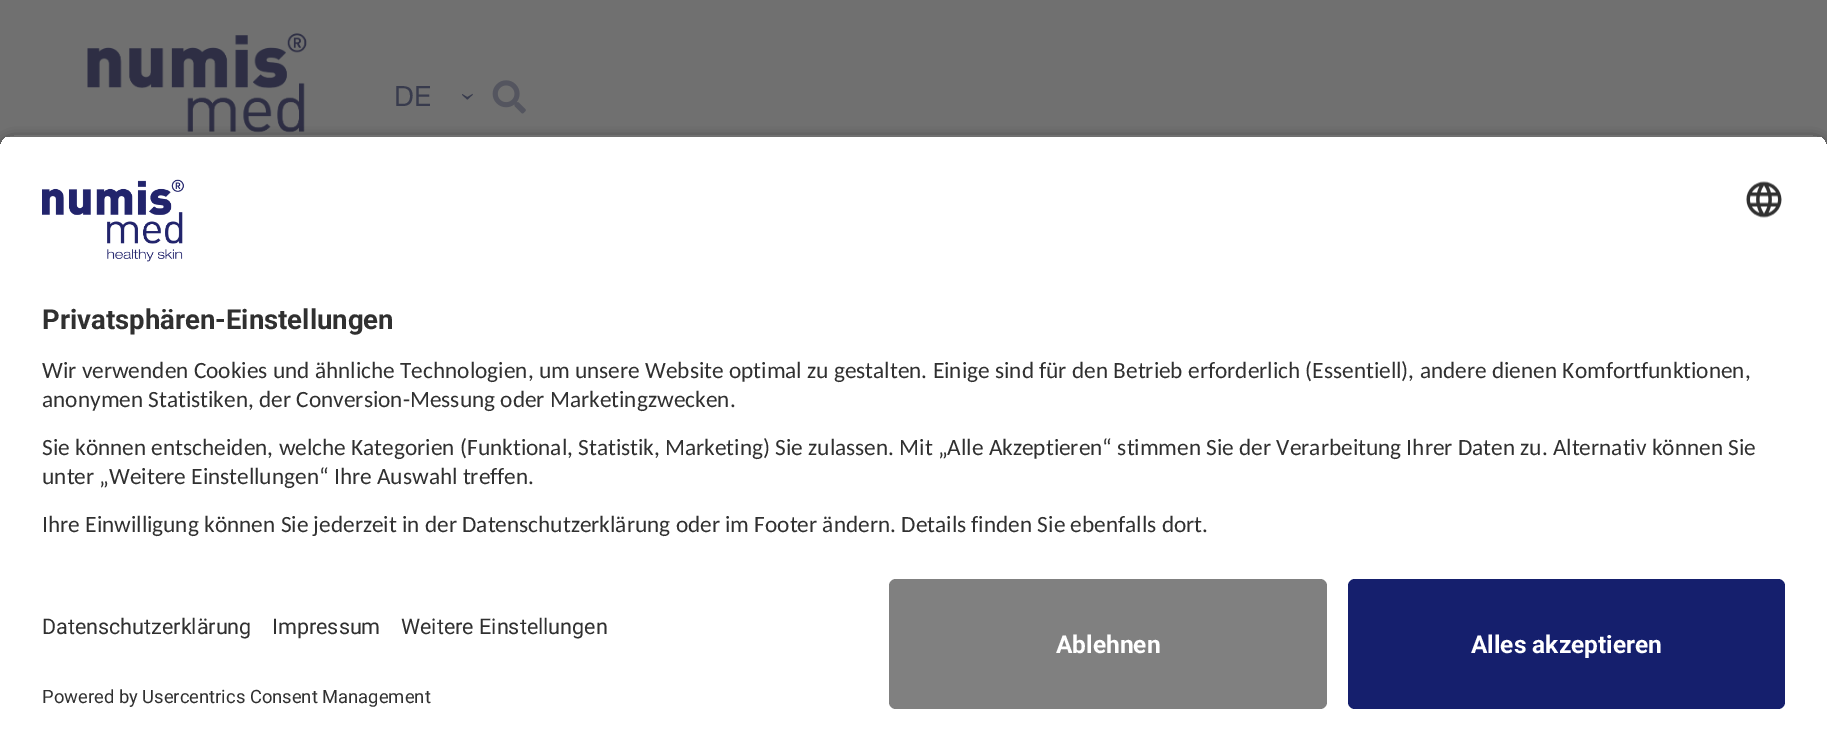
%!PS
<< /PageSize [1827 750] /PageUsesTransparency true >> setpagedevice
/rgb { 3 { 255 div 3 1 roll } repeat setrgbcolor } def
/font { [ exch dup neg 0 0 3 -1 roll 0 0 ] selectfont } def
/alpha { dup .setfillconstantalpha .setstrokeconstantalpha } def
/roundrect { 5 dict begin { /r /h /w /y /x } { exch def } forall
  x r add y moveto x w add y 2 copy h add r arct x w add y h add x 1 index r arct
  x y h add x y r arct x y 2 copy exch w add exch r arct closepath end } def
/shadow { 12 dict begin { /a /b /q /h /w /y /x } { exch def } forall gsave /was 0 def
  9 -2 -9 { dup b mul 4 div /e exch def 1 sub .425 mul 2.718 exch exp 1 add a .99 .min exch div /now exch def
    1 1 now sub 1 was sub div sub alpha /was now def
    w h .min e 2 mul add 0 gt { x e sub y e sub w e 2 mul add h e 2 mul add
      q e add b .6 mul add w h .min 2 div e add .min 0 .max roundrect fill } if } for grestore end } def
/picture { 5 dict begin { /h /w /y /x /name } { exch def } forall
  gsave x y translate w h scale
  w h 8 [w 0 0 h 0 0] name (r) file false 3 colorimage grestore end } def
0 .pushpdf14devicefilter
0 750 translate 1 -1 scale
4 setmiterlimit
112 112 112 rgb
0 0 1827 750 rectfill
(img/1.rgb) 87 33 220 100 picture
(img/2.rgb) 492 80 34 34 picture
gsave
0 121 moveto 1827 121 lineto 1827 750 lineto 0 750 lineto closepath 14 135 moveto 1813 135 lineto 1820.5 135 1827 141.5 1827 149 curveto 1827 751 lineto 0 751 lineto 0 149 lineto 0 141.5 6.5 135 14 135 curveto closepath eoclip newpath
0 0 0 rgb
0 140 1827 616 14 6 0.8 shadow
grestore
gsave
14 135 moveto 1813 135 lineto 1820.5 135 1827 141.5 1827 149 curveto 1827 565 lineto 0 565 lineto 0 149 lineto 0 141.5 6.5 135 14 135 curveto closepath clip newpath
255 255 255 rgb
0 137 1827 428 rectfill
grestore
(img/3.rgb) 42 179 142 83 picture
(img/4.rgb) 1746 181 36 37 picture
255 255 255 rgb
0 565 1827 185 rectfill
128 128 128 rgb
889 579 438 130 7 roundrect fill
21 31 109 rgb
1348 579 437 130 7 roundrect fill
/HelveticaNeue-Regular 28 font
56 59 77 rgb
394 106 moveto (DE) show
/LiberationSerif-Regular 28 font
gsave 461 92 translate 90 rotate 0 0 moveto (›) show grestore
/Roboto-Bold 27.5 font
48 48 48 rgb
42 329 moveto (Privatsphären-Einstellungen) show
/Carlito-Regular 23.33 font
[
  [(Wir verwenden Cookies und ähnliche Technologien, um unsere Website optimal zu gestalten. Einige sind für den Betrieb erforderlich \(Essentiell\), andere dienen Komfortfunktionen,) 42 378]
  [(anonymen Statistiken, der Conversion-Messung oder Marketingzwecken.) 42 407]
  [(Sie können entscheiden, welche Kategorien \(Funktional, Statistik, Marketing\) Sie zulassen. Mit „Alle Akzeptieren“ stimmen Sie der Verarbeitung Ihrer Daten zu. Alternativ können Sie) 42 455]
  [(unter „Weitere Einstellungen“ Ihre Auswahl treffen.) 42 484]
  [(Ihre Einwilligung können Sie jederzeit in der Datenschutzerklärung oder im Footer ändern. Details finden Sie ebenfalls dort.) 42 532]
] { aload pop moveto show } forall
/Roboto-Regular 21.5 font
[
  [(Datenschutzerklärung) 42 634]
  [(Impressum) 272 634]
  [(Weitere Einstellungen) 401 634]
] { aload pop moveto show } forall
/Roboto-Regular 18.4 font
42 703 moveto (Powered by Usercentrics Consent Management) show
/Roboto-Bold 24.5 font
255 255 255 rgb
1056 653 moveto (Ablehnen) show
1471 653 moveto (Alles akzeptieren) show
.poppdf14devicefilter showpage
